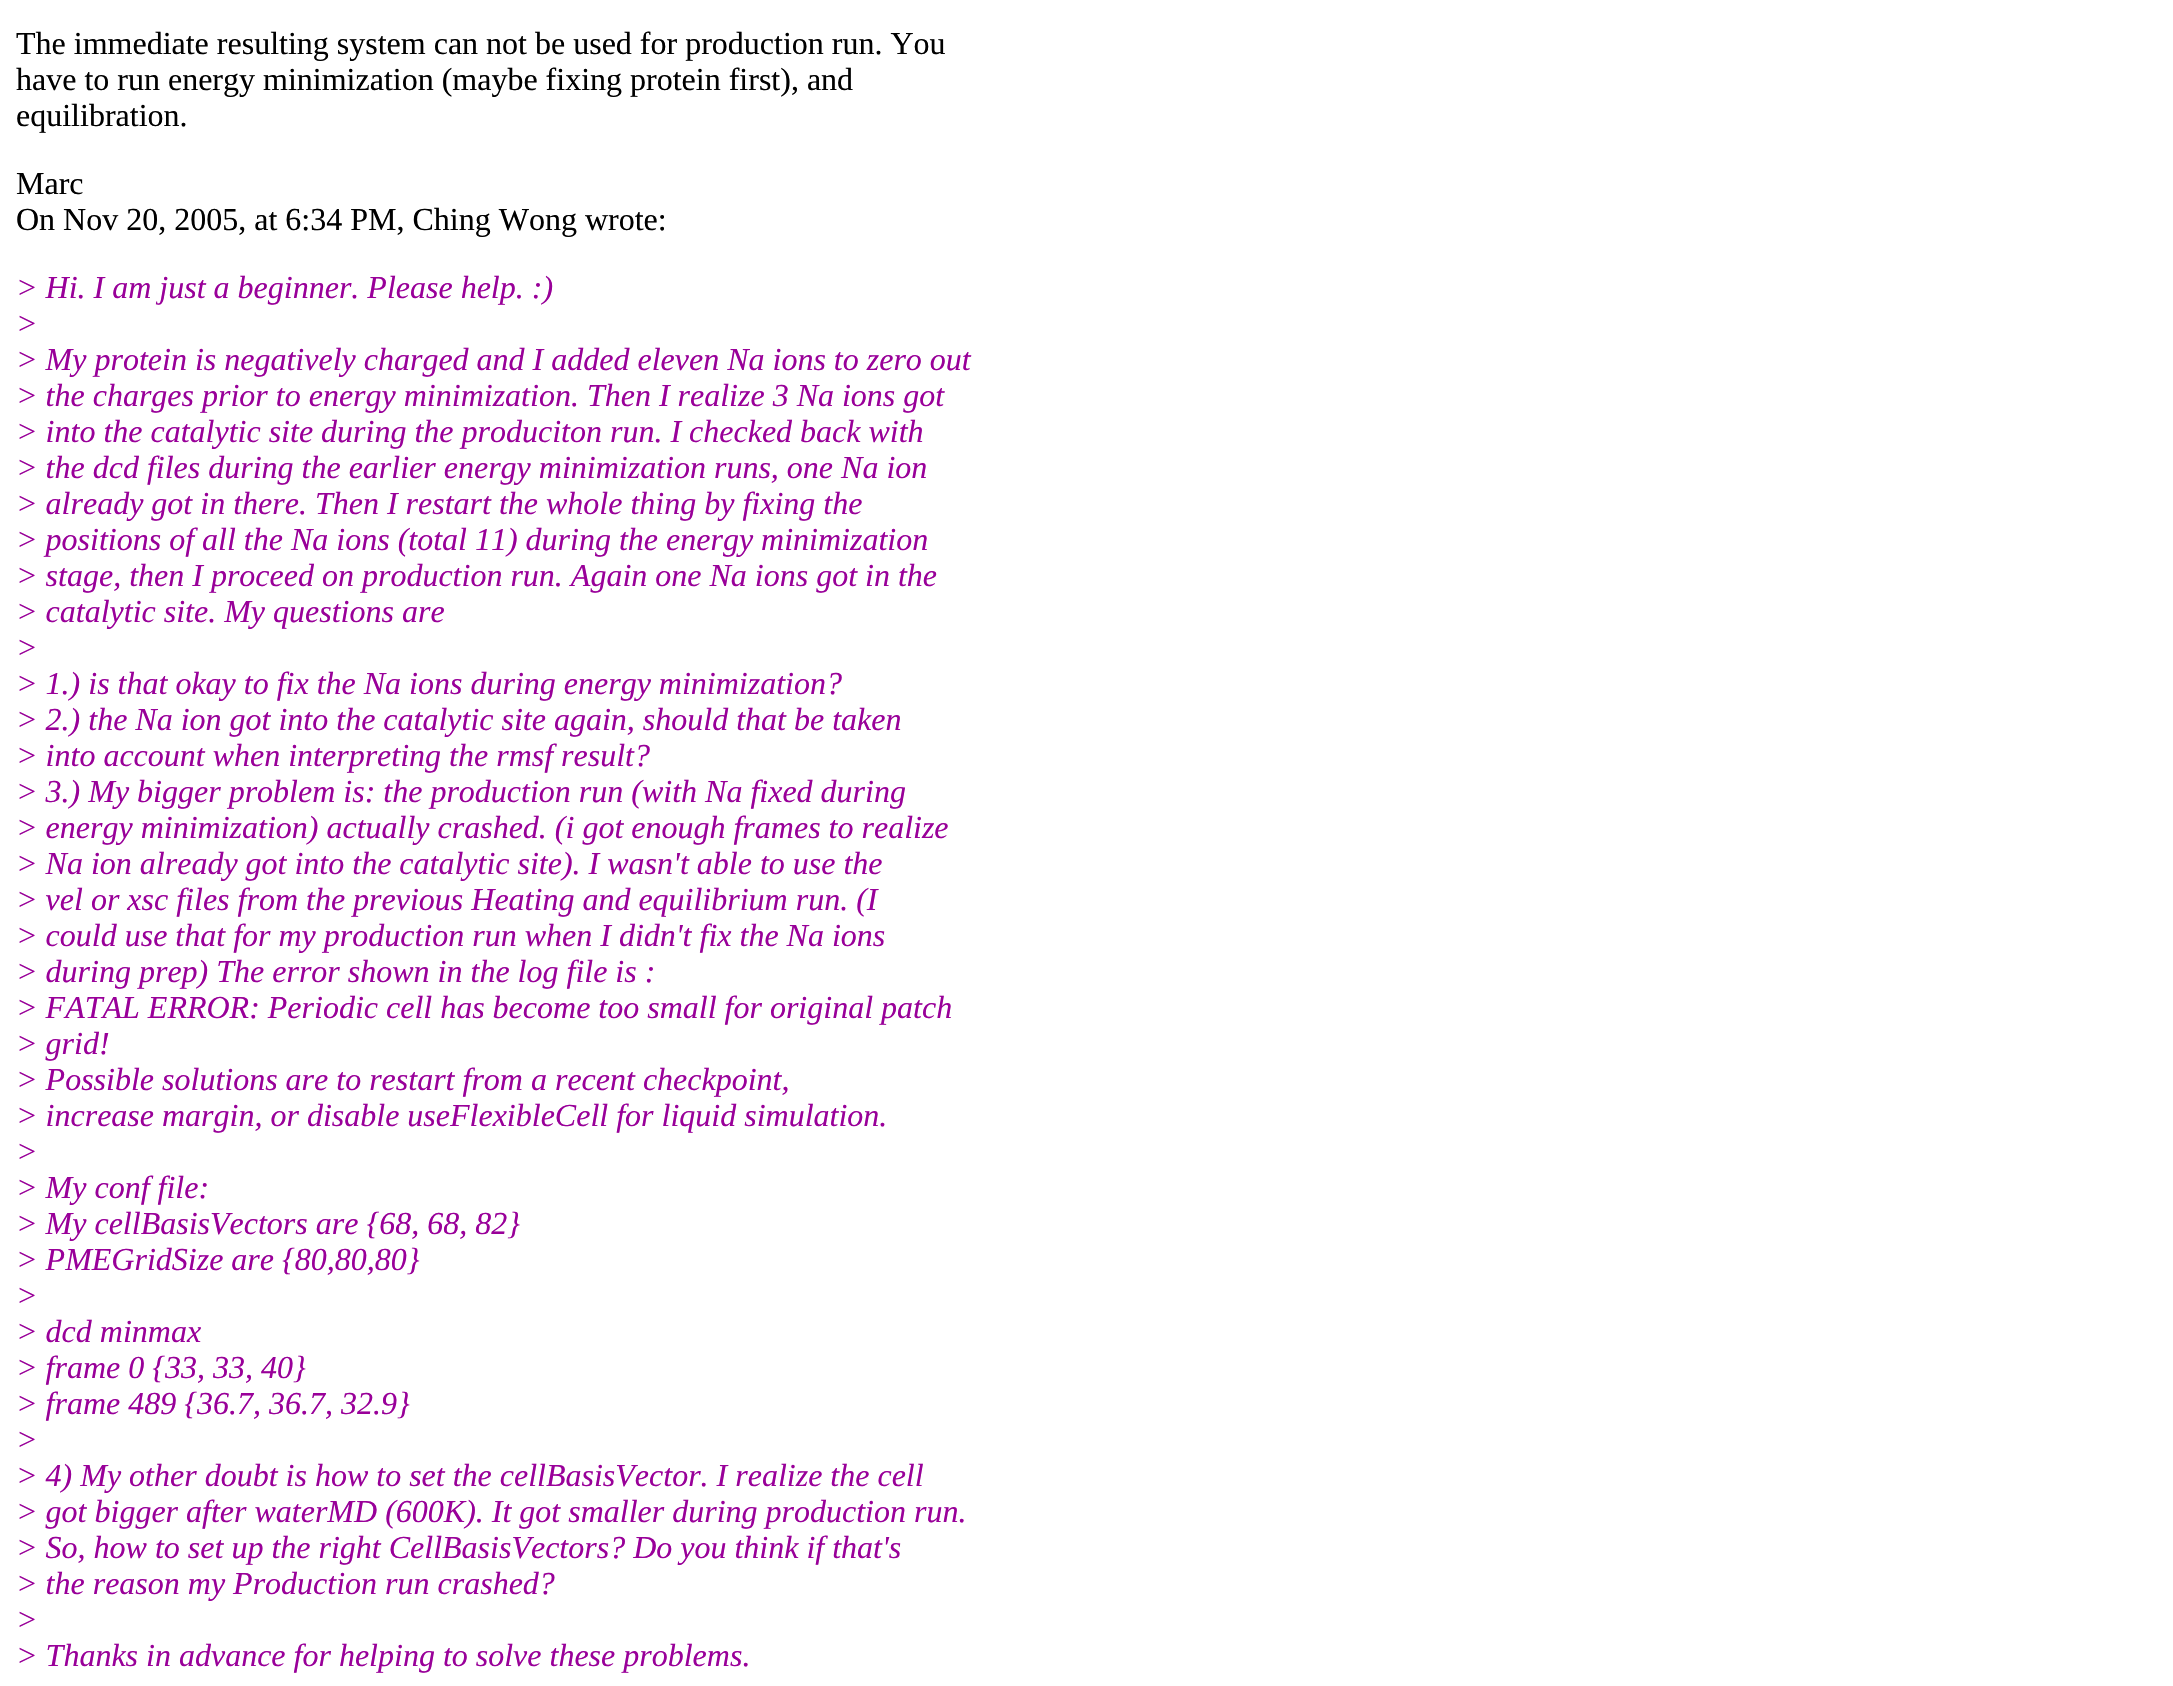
void draw(SkCanvas* canvas) {
  SkPaint paint;
  paint.setAntiAlias(true);
  auto face = [&](const char* family, int weight, float size, bool italic = false) {
    SkFontStyle style(weight, SkFontStyle::kNormal_Width,
      italic ? SkFontStyle::kItalic_Slant : SkFontStyle::kUpright_Slant);
    SkFont result(fontMgr->matchFamilyStyle(family, style), size);
    result.setSubpixel(true);
    return result;
  };
  canvas->clear(0xffffffff);
  auto f0 = face("Liberation Serif", 400, 32);
  paint.setColor(0xff000000);
  {
    const struct { const char* s; float x, y; } items[] = {
      {"The immediate resulting system can not be used for production run. You", 16, 54},
      {"have to run energy minimization (maybe fixing protein first), and", 16, 90},
      {"equilibration.", 16, 126},
      {"Marc", 16, 194},
      {"On Nov 20, 2005, at 6:34 PM, Ching Wong wrote:", 16, 230},
    };
    for (auto [s, x, y] : items) {
      canvas->drawString(s, x, y, f0, paint);
    }
  }
  auto f1 = face("Liberation Serif", 400, 32, true);
  paint.setColor(0xff990099);
  {
    const struct { const char* s; float x, y; } items[] = {
      {"> Hi. I am just a beginner. Please help. :)", 16, 298},
      {">", 16, 334},
      {"> My protein is negatively charged and I added eleven Na ions to zero out", 16, 370},
      {"> the charges prior to energy minimization. Then I realize 3 Na ions got", 16, 406},
      {"> into the catalytic site during the produciton run. I checked back with", 16, 442},
      {"> the dcd files during the earlier energy minimization runs, one Na ion", 16, 478},
      {"> already got in there. Then I restart the whole thing by fixing the", 16, 514},
      {"> positions of all the Na ions (total 11) during the energy minimization", 16, 550},
      {"> stage, then I proceed on production run. Again one Na ions got in the", 16, 586},
      {"> catalytic site. My questions are", 16, 622},
      {">", 16, 658},
      {"> 1.) is that okay to fix the Na ions during energy minimization?", 16, 694},
      {"> 2.) the Na ion got into the catalytic site again, should that be taken", 16, 730},
      {"> into account when interpreting the rmsf result?", 16, 766},
      {"> 3.) My bigger problem is: the production run (with Na fixed during", 16, 802},
      {"> energy minimization) actually crashed. (i got enough frames to realize", 16, 838},
      {"> Na ion already got into the catalytic site). I wasn't able to use the", 16, 874},
      {"> vel or xsc files from the previous Heating and equilibrium run. (I", 16, 910},
      {"> could use that for my production run when I didn't fix the Na ions", 16, 946},
      {"> during prep) The error shown in the log file is :", 16, 982},
      {"> FATAL ERROR: Periodic cell has become too small for original patch", 16, 1018},
      {"> grid!", 16, 1054},
      {"> Possible solutions are to restart from a recent checkpoint,", 16, 1090},
      {"> increase margin, or disable useFlexibleCell for liquid simulation.", 16, 1126},
      {">", 16, 1162},
      {"> My conf file:", 16, 1198},
      {"> My cellBasisVectors are {68, 68, 82}", 16, 1234},
      {"> PMEGridSize are {80,80,80}", 16, 1270},
      {">", 16, 1306},
      {"> dcd minmax", 16, 1342},
      {"> frame 0 {33, 33, 40}", 16, 1378},
      {"> frame 489 {36.7, 36.7, 32.9}", 16, 1414},
      {">", 16, 1450},
      {"> 4) My other doubt is how to set the cellBasisVector. I realize the cell", 16, 1486},
      {"> got bigger after waterMD (600K). It got smaller during production run.", 16, 1522},
      {"> So, how to set up the right CellBasisVectors? Do you think if that's", 16, 1558},
      {"> the reason my Production run crashed?", 16, 1594},
      {">", 16, 1630},
      {"> Thanks in advance for helping to solve these problems.", 16, 1666},
    };
    for (auto [s, x, y] : items) {
      canvas->drawString(s, x, y, f1, paint);
    }
  }
}
